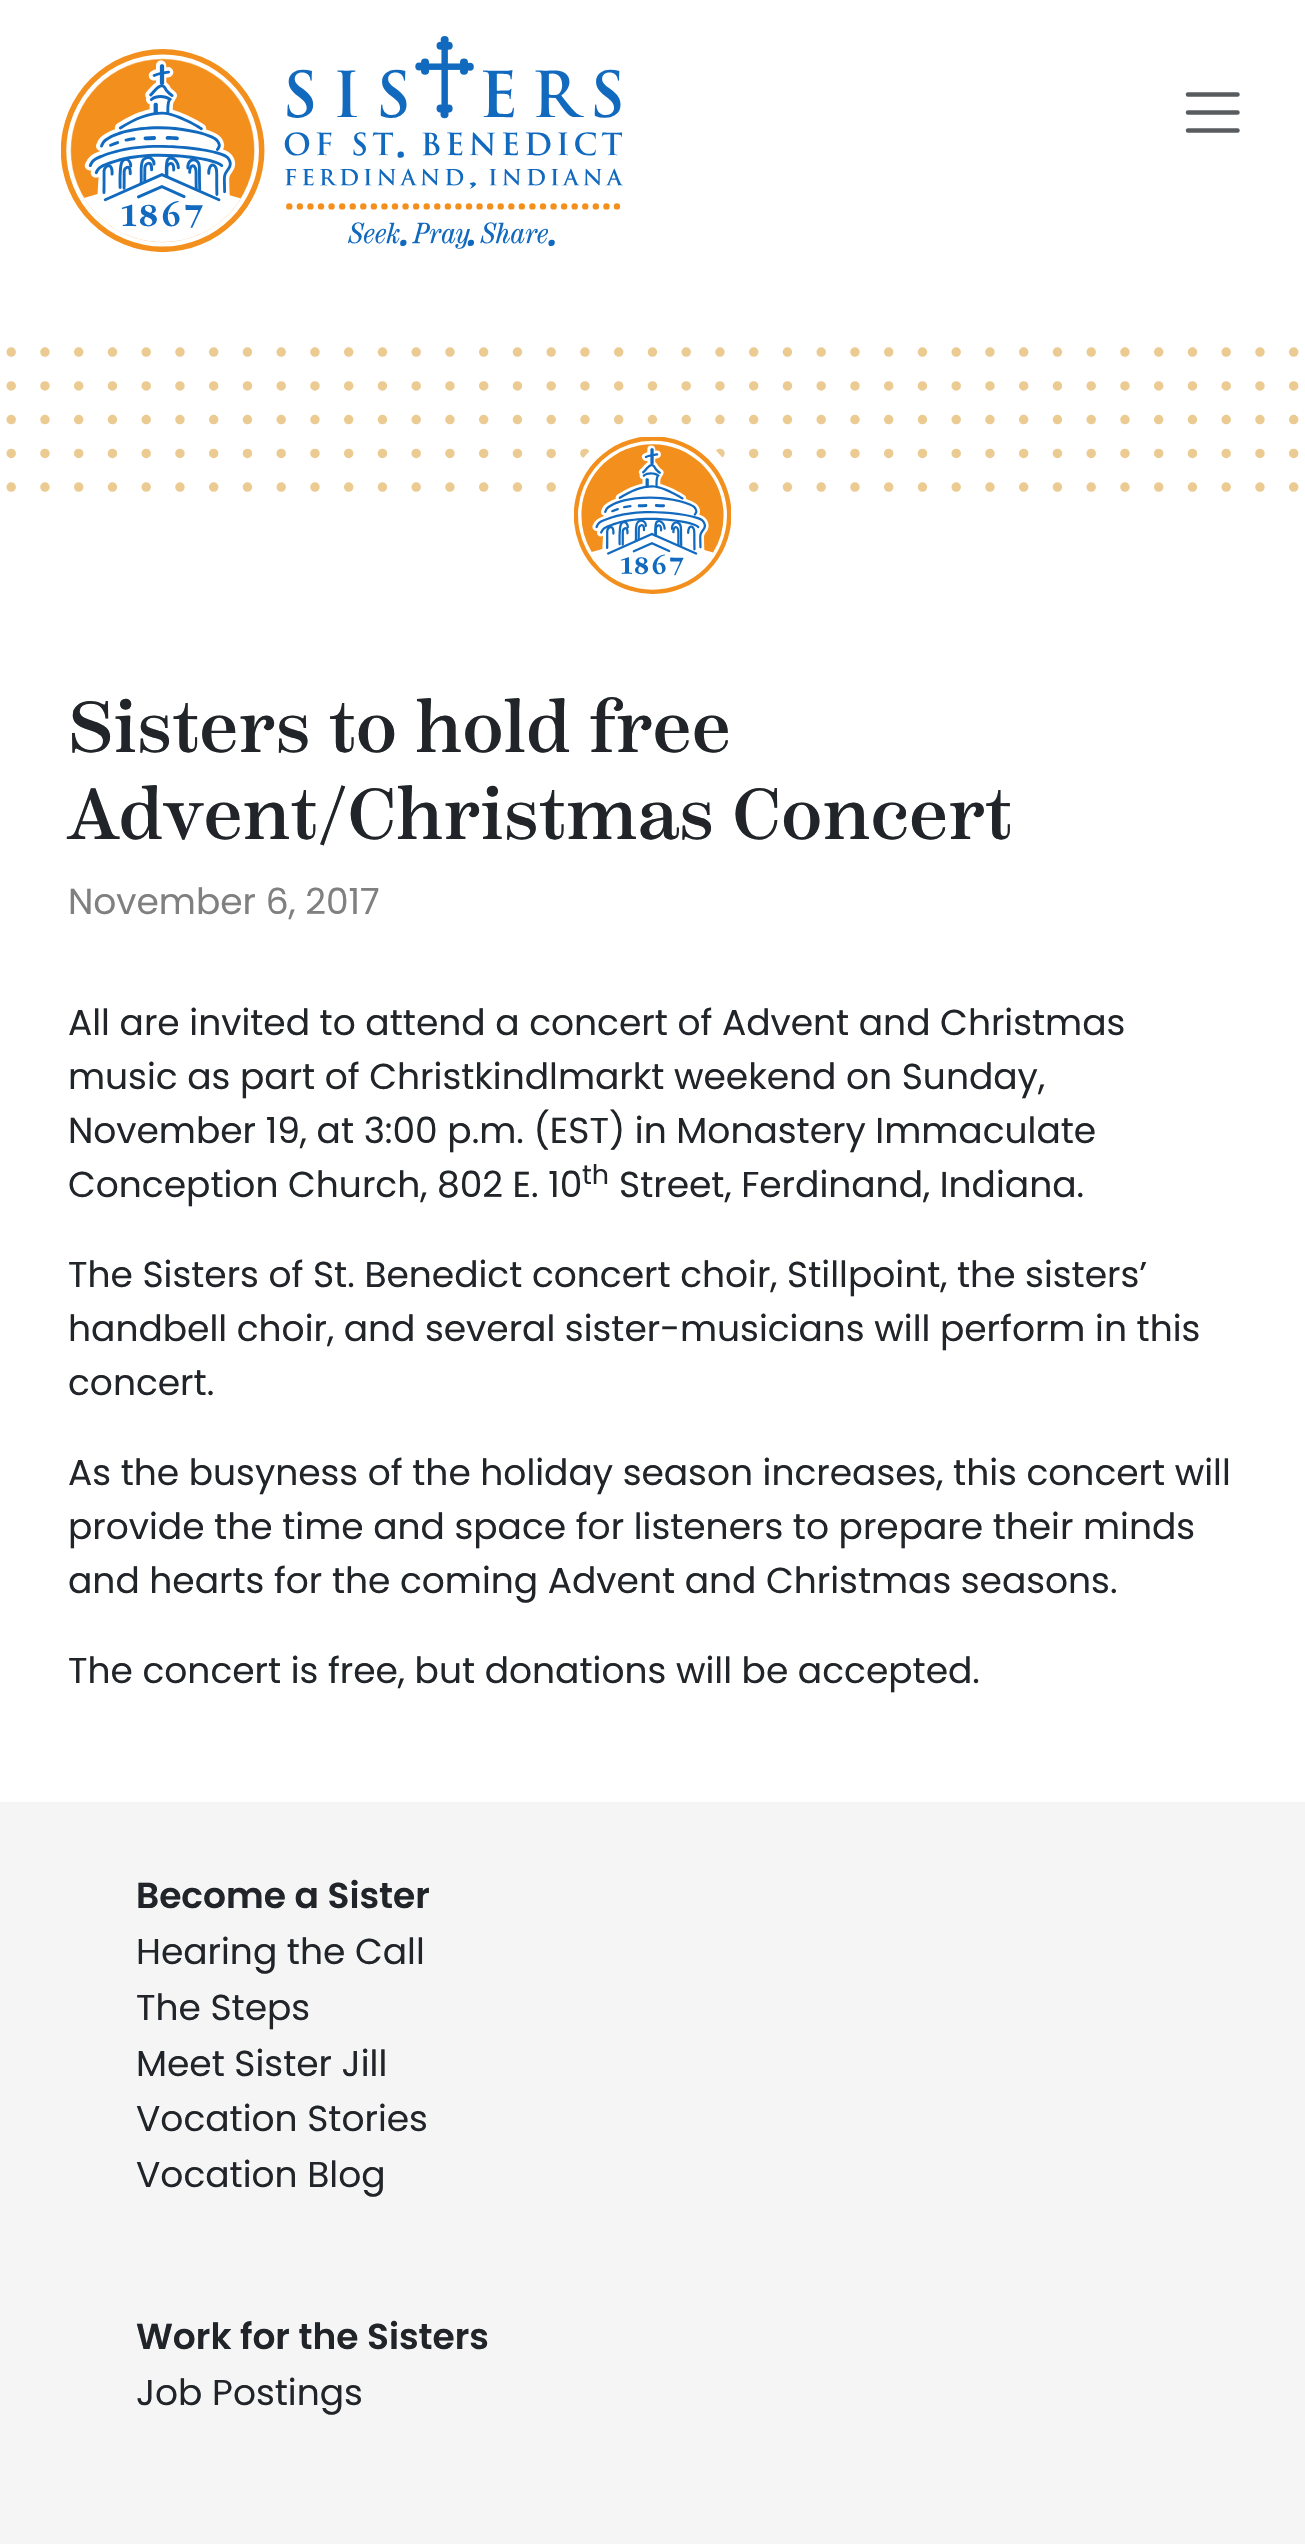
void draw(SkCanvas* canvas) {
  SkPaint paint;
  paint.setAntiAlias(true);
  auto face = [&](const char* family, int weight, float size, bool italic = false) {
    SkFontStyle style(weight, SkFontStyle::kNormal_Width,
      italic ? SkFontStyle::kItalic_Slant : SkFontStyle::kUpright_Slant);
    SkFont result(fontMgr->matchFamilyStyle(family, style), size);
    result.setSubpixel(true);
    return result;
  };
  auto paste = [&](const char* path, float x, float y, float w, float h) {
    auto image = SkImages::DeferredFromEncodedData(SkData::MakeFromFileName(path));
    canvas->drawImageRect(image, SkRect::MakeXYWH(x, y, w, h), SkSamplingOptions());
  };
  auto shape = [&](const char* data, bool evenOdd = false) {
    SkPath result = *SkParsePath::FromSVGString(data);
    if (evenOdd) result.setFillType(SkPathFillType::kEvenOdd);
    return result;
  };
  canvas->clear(0xffffffff);
  paste("img/1.png", 61, 36, 562, 216);
  paint.setStroke(true);
  paint.setStrokeWidth(4.5f);
  paint.setStrokeCap(SkPaint::kRound_Cap);
  paint.setColor(0xff595c5f);
  canvas->drawPath(shape("M1188 94.5H1237.5M1188 112.5H1237.5M1188 130.5H1237.5"), paint);
  paint.setStrokeWidth(9.5f);
  paint.setColor(0xffebcb91);
  paint.setPathEffect(SkDashPathEffect::Make({{0, 33.75f}}, 0));
  canvas->drawPath(shape("M11.2 352.1H1294.2"), paint);
  paint.setPathEffect(nullptr);
  paint.setPathEffect(SkDashPathEffect::Make({{0, 33.75f}}, 0));
  canvas->drawPath(shape("M11.2 385.9H1294.2"), paint);
  paint.setPathEffect(nullptr);
  paint.setPathEffect(SkDashPathEffect::Make({{0, 33.75f}}, 0));
  canvas->drawPath(shape("M11.2 419.6H1294.2"), paint);
  paint.setPathEffect(nullptr);
  paint.setPathEffect(SkDashPathEffect::Make({{0, 33.75f}}, 0));
  canvas->drawPath(shape("M11.2 453.4H1294.2"), paint);
  paint.setPathEffect(nullptr);
  paint.setPathEffect(SkDashPathEffect::Make({{0, 33.75f}}, 0));
  canvas->drawPath(shape("M11.2 487.1H1294.2"), paint);
  paint.setPathEffect(nullptr);
  paint.setStroke(false);
  paint.setColor(0xffffffff);
  canvas->drawCircle(653, 515, 90, paint);
  paste("img/2.png", 574, 437, 157, 157);
  paint.setColor(0xfff5f5f5);
  canvas->drawRect(SkRect::MakeXYWH(0, 1802, 1305, 742), paint);
  auto f0 = face("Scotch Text", 500, 72);
  paint.setColor(0xff212529);
  canvas->drawString("Sisters to hold free", 68, 752, f0, paint);
  canvas->drawString("Advent/Christmas Concert", 68, 839, f0, paint);
  auto f1 = face("Poppins", 400, 36);
  paint.setColor(0xff808080);
  canvas->drawString("November 6, 2017", 68, 914, f1, paint);
  paint.setColor(0xff212529);
  {
    const struct { const char* s; float x, y; } items[] = {
      {"All are invited to attend a concert of Advent and Christmas", 68, 1035},
      {"music as part of Christkindlmarkt weekend on Sunday,", 68, 1089},
      {"November 19, at 3:00 p.m. (EST) in Monastery Immaculate", 68, 1143},
      {"Conception Church, 802 E. 10", 68, 1197},
    };
    for (auto [s, x, y] : items) {
      canvas->drawString(s, x, y, f1, paint);
    }
  }
  auto f2 = face("Poppins", 400, 27);
  canvas->drawString("th", 582, 1184, f2, paint);
  {
    const struct { const char* s; float x, y; } items[] = {
      {"Street, Ferdinand, Indiana.", 619, 1197},
      {"The Sisters of St. Benedict concert choir, Stillpoint, the sisters’", 68, 1287},
      {"handbell choir, and several sister-musicians will perform in this", 68, 1341},
      {"concert.", 68, 1395},
      {"As the busyness of the holiday season increases, this concert will", 68, 1485},
      {"provide the time and space for listeners to prepare their minds", 68, 1539},
      {"and hearts for the coming Advent and Christmas seasons.", 68, 1593},
      {"The concert is free, but donations will be accepted.", 68, 1683},
    };
    for (auto [s, x, y] : items) {
      canvas->drawString(s, x, y, f1, paint);
    }
  }
  auto f3 = face("Poppins", 600, 36);
  canvas->drawString("Become a Sister", 136, 1908, f3, paint);
  {
    const struct { const char* s; float x, y; } items[] = {
      {"Hearing the Call", 136, 1964},
      {"The Steps", 136, 2020},
      {"Meet Sister Jill", 136, 2076},
      {"Vocation Stories", 136, 2131},
      {"Vocation Blog", 136, 2187},
    };
    for (auto [s, x, y] : items) {
      canvas->drawString(s, x, y, f1, paint);
    }
  }
  canvas->drawString("Work for the Sisters", 136, 2349, f3, paint);
  canvas->drawString("Job Postings", 136, 2405, f1, paint);
}
